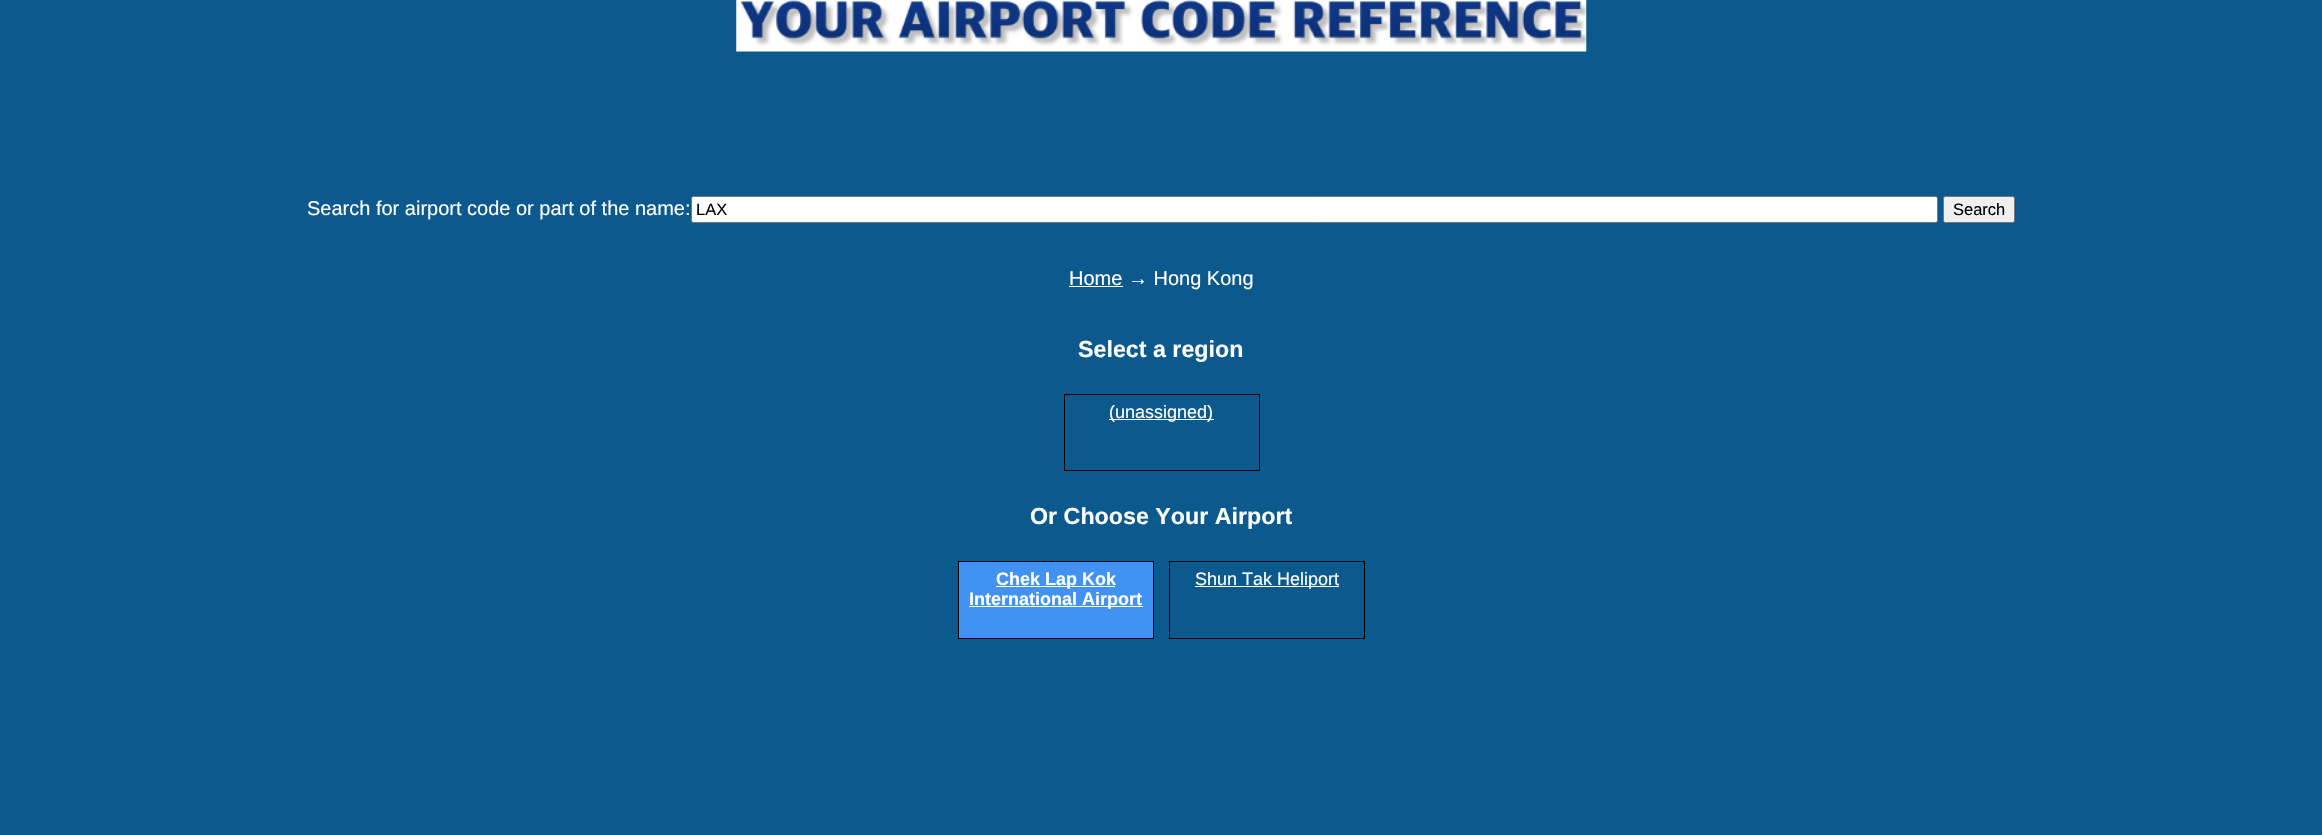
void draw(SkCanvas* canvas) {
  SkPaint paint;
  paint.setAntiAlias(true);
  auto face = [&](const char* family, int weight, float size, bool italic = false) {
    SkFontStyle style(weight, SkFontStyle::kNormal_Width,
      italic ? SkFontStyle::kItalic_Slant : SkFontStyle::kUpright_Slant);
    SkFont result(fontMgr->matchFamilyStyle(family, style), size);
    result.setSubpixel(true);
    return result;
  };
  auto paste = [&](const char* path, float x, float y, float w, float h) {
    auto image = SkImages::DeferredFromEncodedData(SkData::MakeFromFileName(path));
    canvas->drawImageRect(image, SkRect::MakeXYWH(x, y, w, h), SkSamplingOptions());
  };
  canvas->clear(0xff0b598d);
  paste("img/1.png", 736, 0, 851, 52);
  paint.setColor(0xffffffff);
  canvas->drawRoundRect(SkRect::MakeXYWH(691.5f, 196.5f, 1246, 26), 2, 2, paint);
  paint.setStroke(true);
  paint.setStrokeWidth(1);
  paint.setColor(0xff767676);
  canvas->drawRoundRect(SkRect::MakeXYWH(691.5f, 196.5f, 1246, 26), 2, 2, paint);
  paint.setStroke(false);
  paint.setColor(0xffefefef);
  canvas->drawRoundRect(SkRect::MakeXYWH(1943.5f, 196.5f, 71, 26), 2, 2, paint);
  paint.setStroke(true);
  paint.setColor(0xff767676);
  canvas->drawRoundRect(SkRect::MakeXYWH(1943.5f, 196.5f, 71, 26), 2, 2, paint);
  paint.setStroke(false);
  paint.setColor(0xffffffff);
  canvas->drawRect(SkRect::MakeXYWH(1069, 286, 54, 1), paint);
  paint.setStroke(true);
  paint.setColor(0xff000000);
  canvas->drawRect(SkRect::MakeXYWH(1064.5f, 394.5f, 195, 76), paint);
  paint.setStroke(false);
  paint.setColor(0xffffffff);
  canvas->drawRect(SkRect::MakeXYWH(1109, 419, 105, 1), paint);
  paint.setColor(0xff4292f4);
  canvas->drawRect(SkRect::MakeXYWH(958.5f, 561.5f, 195, 77), paint);
  paint.setStroke(true);
  paint.setColor(0xff000000);
  canvas->drawRect(SkRect::MakeXYWH(958.5f, 561.5f, 195, 77), paint);
  paint.setStroke(false);
  paint.setColor(0xffffffff);
  canvas->drawRect(SkRect::MakeXYWH(996, 586, 119, 1), paint);
  canvas->drawRect(SkRect::MakeXYWH(969, 606, 174, 1), paint);
  paint.setStroke(true);
  paint.setColor(0xff000000);
  canvas->drawRect(SkRect::MakeXYWH(1169.5f, 561.5f, 195, 77), paint);
  paint.setStroke(false);
  paint.setColor(0xffffffff);
  canvas->drawRect(SkRect::MakeXYWH(1195, 586, 144, 1), paint);
  auto f0 = face("Liberation Sans", 400, 20);
  canvas->drawString("Search for airport code or part of the name:", 307, 215, f0, paint);
  auto f1 = face("Liberation Sans", 400, 16.5f);
  paint.setColor(0xff000000);
  canvas->drawString("LAX", 696, 215, f1, paint);
  canvas->drawString("Search", 1953, 215, f1, paint);
  paint.setColor(0xffffffff);
  canvas->drawString("Home → Hong Kong", 1069, 285, f0, paint);
  auto f2 = face("Liberation Sans", 700, 23.25f);
  canvas->drawString("Select a region", 1078, 357, f2, paint);
  auto f3 = face("Liberation Sans", 400, 18);
  canvas->drawString("(unassigned)", 1109, 418, f3, paint);
  canvas->drawString("Or Choose Your Airport", 1030, 524, f2, paint);
  auto f4 = face("Liberation Sans", 700, 18);
  canvas->drawString("Chek Lap Kok", 996, 585, f4, paint);
  canvas->drawString("International Airport", 969, 605, f4, paint);
  canvas->drawString("Shun Tak Heliport", 1195, 585, f3, paint);
}
